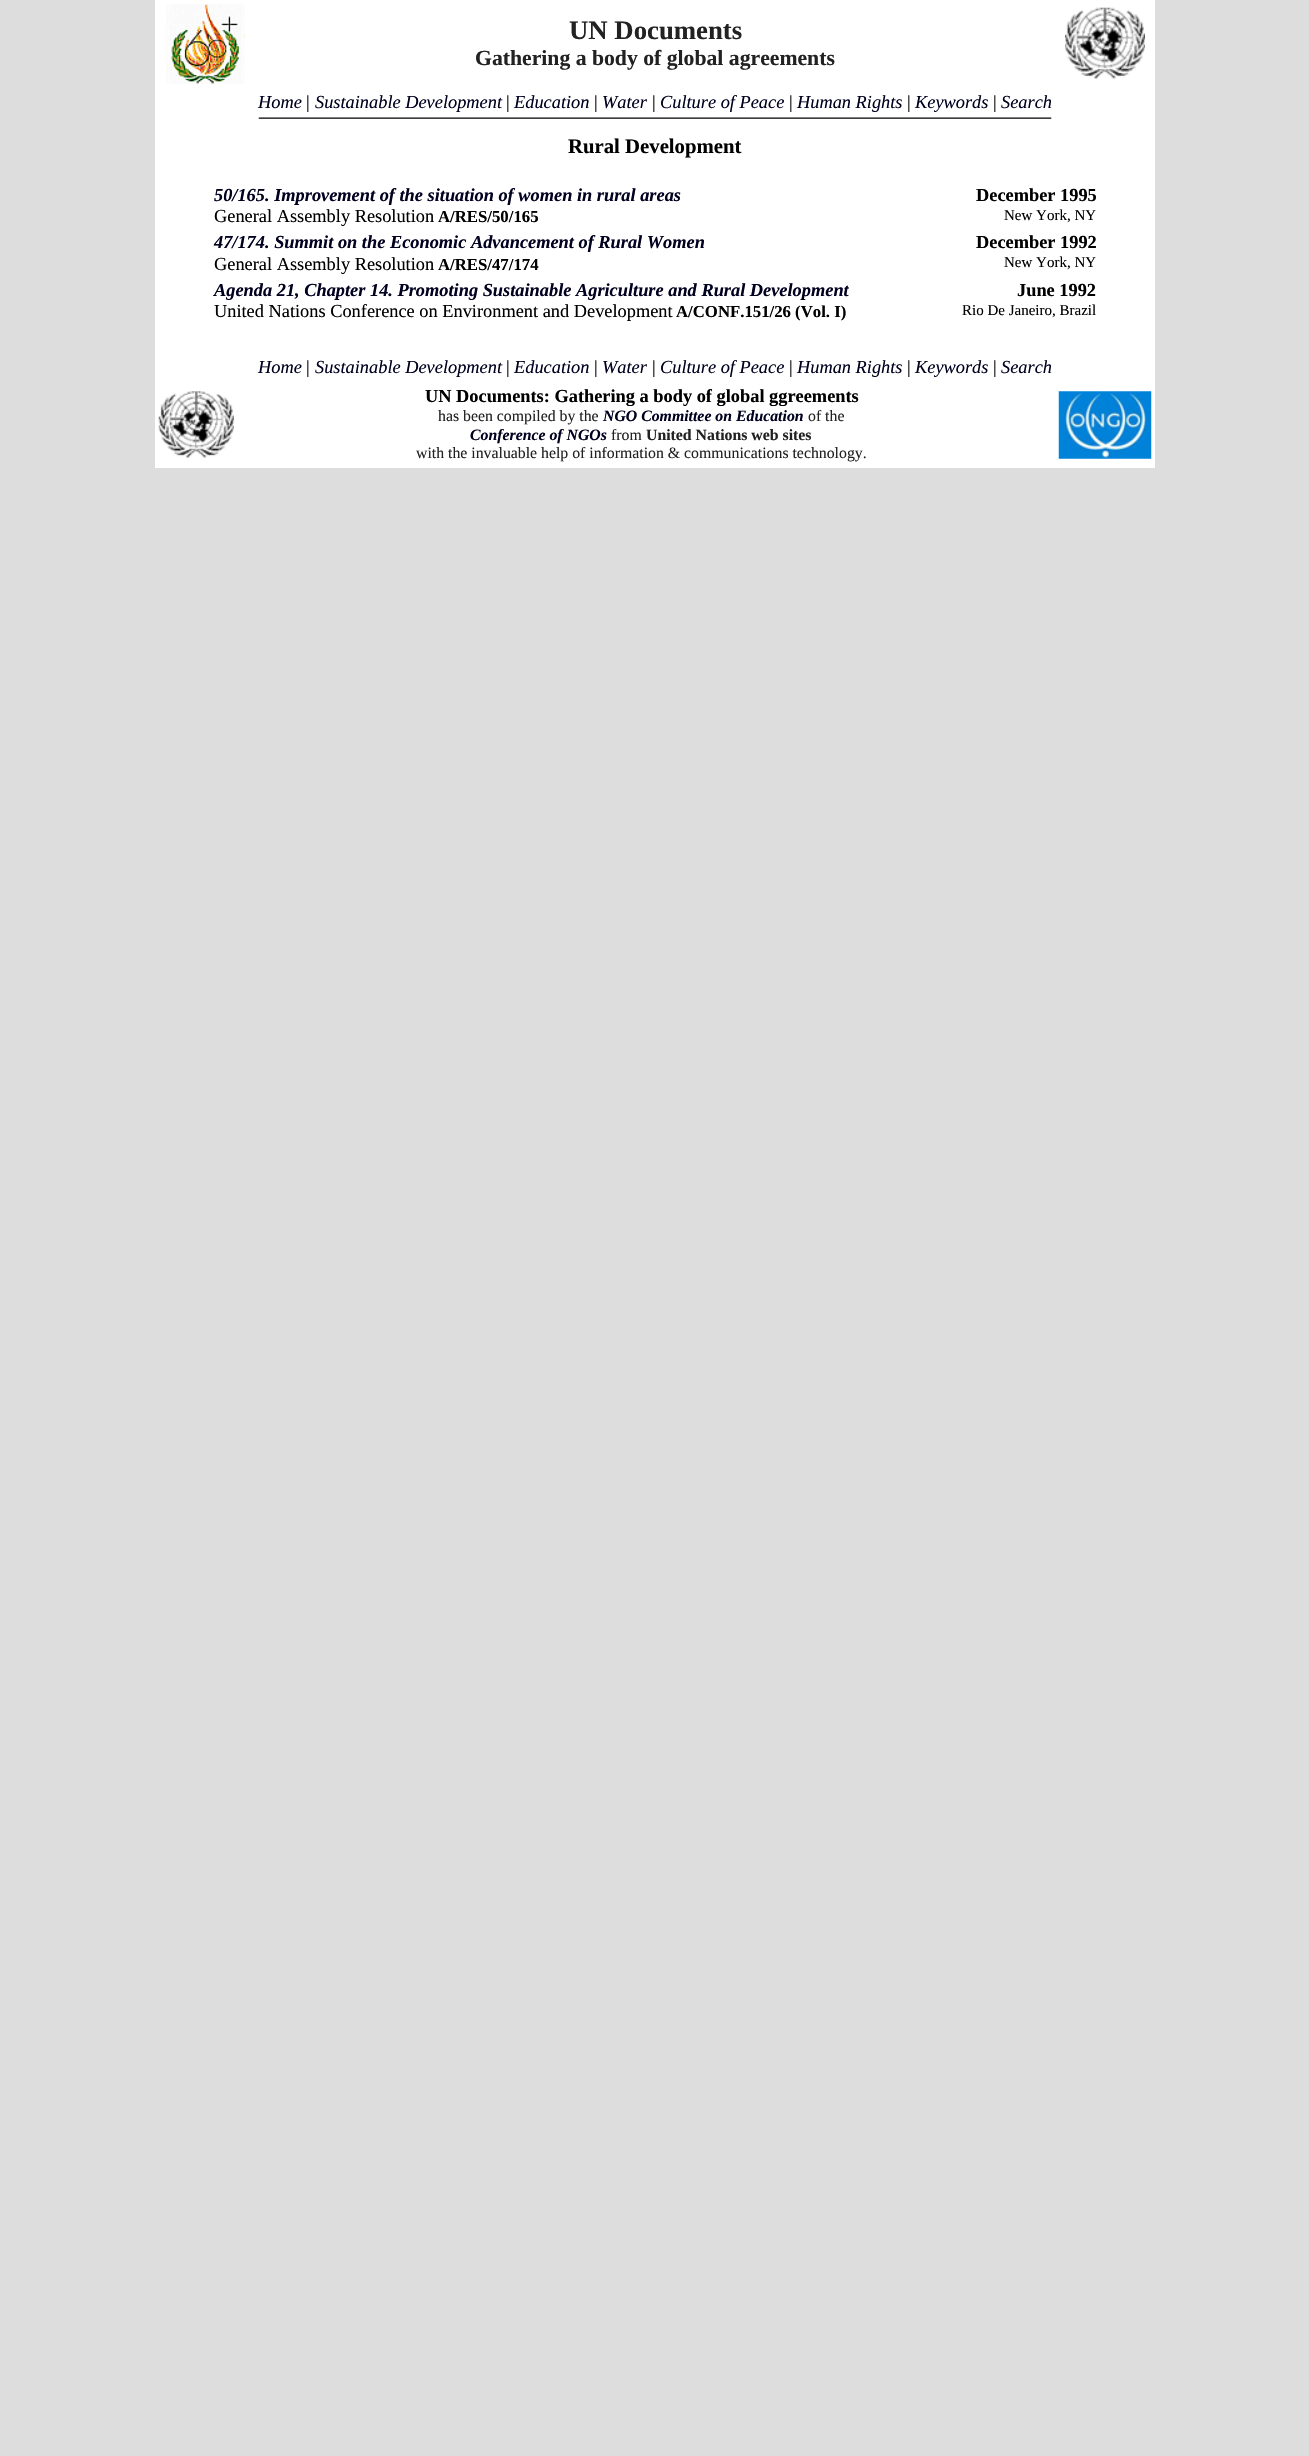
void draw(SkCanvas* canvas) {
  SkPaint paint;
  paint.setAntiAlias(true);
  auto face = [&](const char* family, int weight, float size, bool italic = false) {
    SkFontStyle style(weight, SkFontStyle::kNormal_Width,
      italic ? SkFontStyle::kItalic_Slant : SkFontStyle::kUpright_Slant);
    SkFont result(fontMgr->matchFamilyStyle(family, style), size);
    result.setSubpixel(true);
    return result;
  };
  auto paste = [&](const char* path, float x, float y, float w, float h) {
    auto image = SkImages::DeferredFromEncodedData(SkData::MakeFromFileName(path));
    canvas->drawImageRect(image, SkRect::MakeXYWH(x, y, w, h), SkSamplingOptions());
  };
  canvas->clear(0xffdddddd);
  paint.setColor(0xffffffff);
  canvas->drawRect(SkRect::MakeXYWH(155, 0, 1000, 468), paint);
  paste("img/1.png", 166, 3, 79, 81);
  paste("img/2.png", 1065, 7, 80, 72);
  paste("img/3.png", 258, 117, 794, 2);
  paste("img/4.png", 158, 391, 76, 67);
  paste("img/5.png", 1058, 391, 94, 68);
  auto f0 = face("Liberation Serif", 700, 26.75f);
  paint.setColor(0xff222222);
  canvas->drawString("UN Documents", 569, 39, f0, paint);
  auto f1 = face("Liberation Serif", 700, 21.7f);
  canvas->drawString("Gathering a body of global agreements", 475, 65, f1, paint);
  auto f2 = face("Liberation Serif", 400, 18.35f, true);
  paint.setColor(0xff00001f);
  canvas->drawString("Home", 258, 108, f2, paint);
  auto f3 = face("Liberation Serif", 400, 18.35f);
  paint.setColor(0xff000000);
  canvas->drawString("|", 306, 108, f3, paint);
  paint.setColor(0xff00001f);
  canvas->drawString("Sustainable Development", 315, 108, f2, paint);
  paint.setColor(0xff000000);
  canvas->drawString("|", 506, 108, f3, paint);
  paint.setColor(0xff00001f);
  canvas->drawString("Education", 514, 108, f2, paint);
  paint.setColor(0xff000000);
  canvas->drawString("|", 594, 108, f3, paint);
  paint.setColor(0xff00001f);
  canvas->drawString("Water", 602, 108, f2, paint);
  paint.setColor(0xff000000);
  canvas->drawString("|", 652, 108, f3, paint);
  paint.setColor(0xff00001f);
  canvas->drawString("Culture of Peace", 660, 108, f2, paint);
  paint.setColor(0xff000000);
  canvas->drawString("|", 789, 108, f3, paint);
  paint.setColor(0xff00001f);
  canvas->drawString("Human Rights", 797, 108, f2, paint);
  paint.setColor(0xff000000);
  canvas->drawString("|", 907, 108, f3, paint);
  paint.setColor(0xff00001f);
  canvas->drawString("Keywords", 915, 108, f2, paint);
  paint.setColor(0xff000000);
  canvas->drawString("|", 993, 108, f3, paint);
  paint.setColor(0xff00001f);
  canvas->drawString("Search", 1001, 108, f2, paint);
  auto f4 = face("Liberation Serif", 700, 20.75f);
  paint.setColor(0xff000000);
  canvas->drawString("Rural Development", 568, 153, f4, paint);
  auto f5 = face("Liberation Serif", 700, 18.35f, true);
  paint.setColor(0xff00001f);
  canvas->drawString("50/165. Improvement of the situation of women in rural areas", 214, 201, f5, paint);
  paint.setColor(0xff000000);
  canvas->drawString("General Assembly Resolution", 214, 222, f3, paint);
  auto f6 = face("Liberation Serif", 700, 16.75f);
  canvas->drawString("A/RES/50/165", 438, 222, f6, paint);
  auto f7 = face("Liberation Serif", 700, 18.35f);
  canvas->drawString("December 1995", 976, 201, f7, paint);
  auto f8 = face("Liberation Serif", 400, 15);
  canvas->drawString("New York, NY", 1004, 220, f8, paint);
  paint.setColor(0xff00001f);
  canvas->drawString("47/174. Summit on the Economic Advancement of Rural Women", 214, 248, f5, paint);
  paint.setColor(0xff000000);
  canvas->drawString("General Assembly Resolution", 214, 270, f3, paint);
  canvas->drawString("A/RES/47/174", 438, 270, f6, paint);
  canvas->drawString("December 1992", 976, 248, f7, paint);
  canvas->drawString("New York, NY", 1004, 267, f8, paint);
  paint.setColor(0xff00001f);
  canvas->drawString("Agenda 21, Chapter 14. Promoting Sustainable Agriculture and Rural Development", 214, 296, f5, paint);
  paint.setColor(0xff000000);
  canvas->drawString("United Nations Conference on Environment and Development", 214, 317, f3, paint);
  canvas->drawString("A/CONF.151/26 (Vol. I)", 676, 317, f6, paint);
  canvas->drawString("June 1992", 1017, 296, f7, paint);
  canvas->drawString("Rio De Janeiro, Brazil", 962, 315, f8, paint);
  paint.setColor(0xff00001f);
  canvas->drawString("Home", 258, 373, f2, paint);
  paint.setColor(0xff000000);
  canvas->drawString("|", 306, 373, f3, paint);
  paint.setColor(0xff00001f);
  canvas->drawString("Sustainable Development", 315, 373, f2, paint);
  paint.setColor(0xff000000);
  canvas->drawString("|", 506, 373, f3, paint);
  paint.setColor(0xff00001f);
  canvas->drawString("Education", 514, 373, f2, paint);
  paint.setColor(0xff000000);
  canvas->drawString("|", 594, 373, f3, paint);
  paint.setColor(0xff00001f);
  canvas->drawString("Water", 602, 373, f2, paint);
  paint.setColor(0xff000000);
  canvas->drawString("|", 652, 373, f3, paint);
  paint.setColor(0xff00001f);
  canvas->drawString("Culture of Peace", 660, 373, f2, paint);
  paint.setColor(0xff000000);
  canvas->drawString("|", 789, 373, f3, paint);
  paint.setColor(0xff00001f);
  canvas->drawString("Human Rights", 797, 373, f2, paint);
  paint.setColor(0xff000000);
  canvas->drawString("|", 907, 373, f3, paint);
  paint.setColor(0xff00001f);
  canvas->drawString("Keywords", 915, 373, f2, paint);
  paint.setColor(0xff000000);
  canvas->drawString("|", 993, 373, f3, paint);
  paint.setColor(0xff00001f);
  canvas->drawString("Search", 1001, 373, f2, paint);
  paint.setColor(0xff000000);
  canvas->drawString("UN Documents: Gathering a body of global ggreements", 425, 402, f7, paint);
  auto f9 = face("Liberation Serif", 400, 15.8f);
  paint.setColor(0xff222222);
  canvas->drawString("has been compiled by the", 438, 421, f9, paint);
  auto f10 = face("Liberation Serif", 700, 15.8f, true);
  paint.setColor(0xff00001f);
  canvas->drawString("NGO Committee on Education", 603, 421, f10, paint);
  paint.setColor(0xff222222);
  canvas->drawString("of the", 808, 421, f9, paint);
  paint.setColor(0xff00001f);
  canvas->drawString("Conference of NGOs", 470, 440, f10, paint);
  paint.setColor(0xff222222);
  canvas->drawString("from", 611, 440, f9, paint);
  auto f11 = face("Liberation Serif", 700, 15.8f);
  canvas->drawString("United Nations web sites", 646, 440, f11, paint);
  canvas->drawString("with the invaluable help of information & communications technology.", 416, 458, f9, paint);
}
